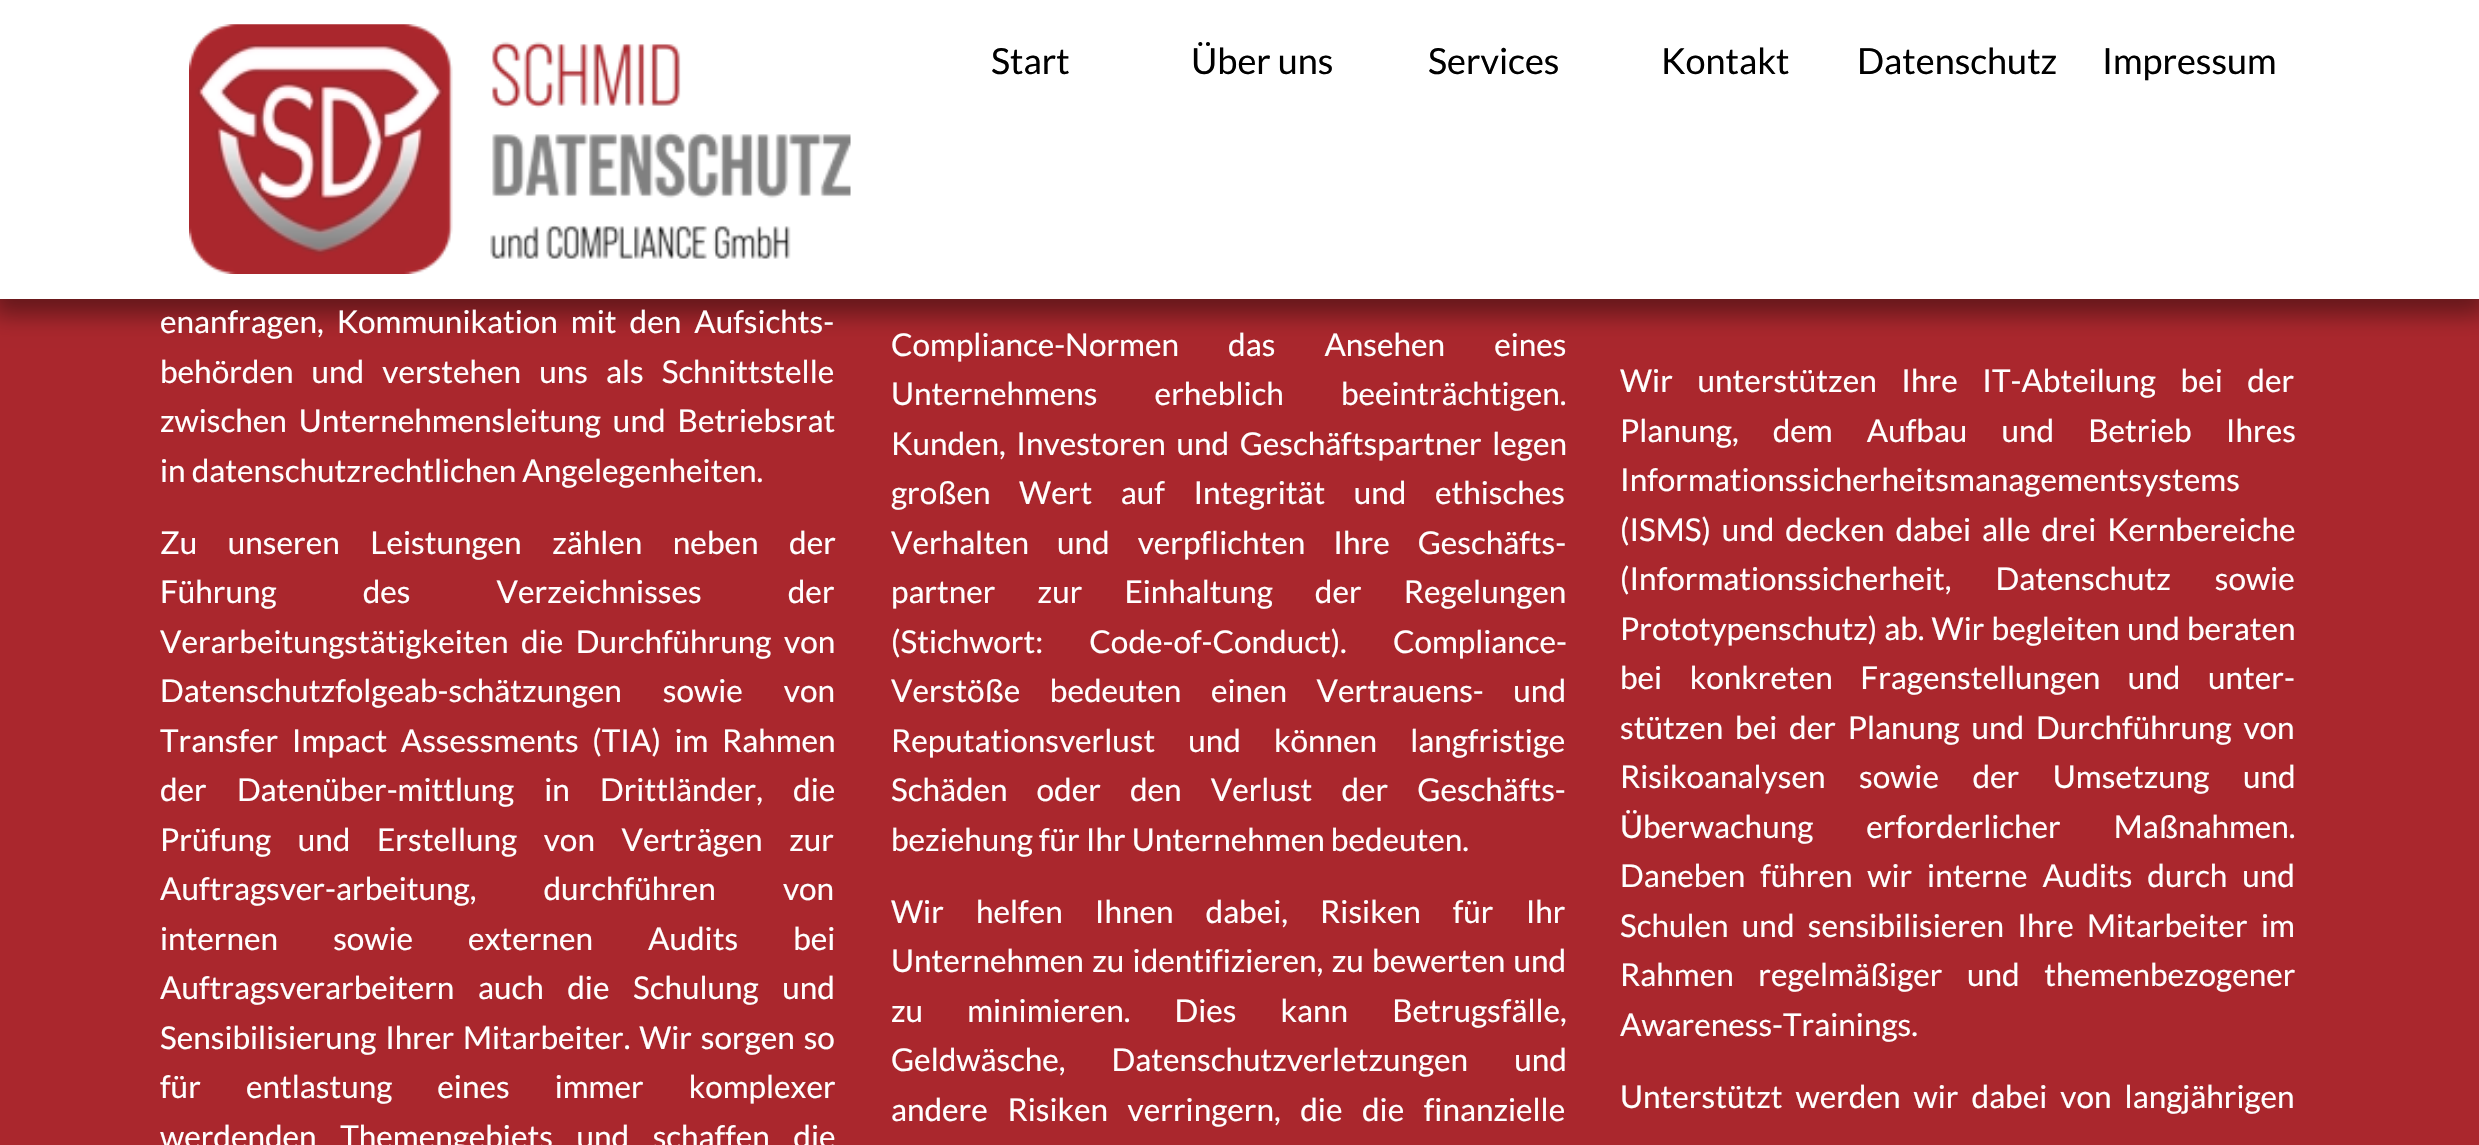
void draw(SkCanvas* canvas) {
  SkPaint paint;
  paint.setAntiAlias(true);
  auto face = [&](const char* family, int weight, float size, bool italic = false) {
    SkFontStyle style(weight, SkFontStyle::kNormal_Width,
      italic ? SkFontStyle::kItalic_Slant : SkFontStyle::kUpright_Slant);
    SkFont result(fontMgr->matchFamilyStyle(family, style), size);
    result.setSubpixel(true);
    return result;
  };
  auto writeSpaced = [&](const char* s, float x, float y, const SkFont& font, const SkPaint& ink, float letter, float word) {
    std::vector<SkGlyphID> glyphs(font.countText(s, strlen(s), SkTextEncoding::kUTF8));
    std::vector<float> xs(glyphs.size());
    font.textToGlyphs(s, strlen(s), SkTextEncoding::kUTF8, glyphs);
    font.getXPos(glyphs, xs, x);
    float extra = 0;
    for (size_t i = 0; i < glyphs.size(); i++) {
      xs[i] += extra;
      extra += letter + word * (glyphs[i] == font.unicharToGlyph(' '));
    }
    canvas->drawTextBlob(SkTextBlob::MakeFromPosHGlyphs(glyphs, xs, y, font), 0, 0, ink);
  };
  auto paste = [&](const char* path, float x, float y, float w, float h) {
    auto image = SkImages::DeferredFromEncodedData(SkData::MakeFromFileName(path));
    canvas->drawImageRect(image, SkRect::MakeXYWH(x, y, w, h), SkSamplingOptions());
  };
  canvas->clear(0xffaa272d);
  paint.setColor(0x66000000);
  paint.setMaskFilter(SkMaskFilter::MakeBlur(kNormal_SkBlurStyle, 11));
  canvas->drawRect(SkRect::MakeXYWH(-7, 2, 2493, 313), paint);
  paint.setMaskFilter(nullptr);
  paint.setColor(0xffffffff);
  canvas->drawRect(SkRect::MakeXYWH(0, 0, 2479, 299), paint);
  paste("img/1.png", 189, 24, 662, 250);
  auto f0 = face("Lato", 400, 36);
  paint.setColor(0xff000000);
  {
    const struct { const char* s; float x, y; } items[] = {
      {"Start", 991, 74},
      {"Über uns", 1191, 74},
      {"Services", 1428, 74},
      {"Kontakt", 1661, 74},
      {"Datenschutz", 1857, 74},
      {"Impressum", 2102, 74},
    };
    for (auto [s, x, y] : items) {
      canvas->drawString(s, x, y, f0, paint);
    }
  }
  auto f1 = face("Lato", 400, 31.5f);
  paint.setColor(0xffffffff);
  writeSpaced("enanfragen, Kommunikation mit den Aufsichts-", 160, 333, f1, paint, 0, 7);
  writeSpaced("behörden und verstehen uns als Schnittstelle", 160, 383, f1, paint, 0, 12);
  writeSpaced("zwischen Unternehmensleitung und Betriebsrat", 160, 432, f1, paint, 0, 6);
  canvas->drawString("in datenschutzrechtlichen Angelegenheiten.", 160, 482, f1, paint);
  writeSpaced("Zu unseren Leistungen zählen neben der", 160, 554, f1, paint, 0, 24.5f);
  writeSpaced("Führung des Verzeichnisses der", 160, 603, f1, paint, 0, 80);
  writeSpaced("Verarbeitungstätigkeiten die Durchführung von", 160, 653, f1, paint, 0, 6.5f);
  writeSpaced("Datenschutzfolgeab-schätzungen sowie von", 160, 702, f1, paint, 0, 35);
  writeSpaced("Transfer Impact Assessments (TIA) im Rahmen", 160, 752, f1, paint, 0, 7.5f);
  writeSpaced("der Datenüber-mittlung in Drittländer, die", 160, 801, f1, paint, 0, 24);
  writeSpaced("Prüfung und Erstellung von Verträgen zur", 160, 851, f1, paint, 0, 20.5f);
  writeSpaced("Auftragsver-arbeitung, durchführen von", 160, 900, f1, paint, 0, 61);
  writeSpaced("internen sowie externen Audits bei", 160, 950, f1, paint, 0, 49);
  writeSpaced("Auftragsverarbeitern auch die Schulung und", 160, 999, f1, paint, 0, 17.5f);
  writeSpaced("Sensibilisierung Ihrer Mitarbeiter. Wir sorgen so", 160, 1049, f1, paint, 0, 2.75f);
  writeSpaced("für entlastung eines immer komplexer", 160, 1098, f1, paint, 0, 39);
  writeSpaced("werdenden Themengebiets und schaffen die", 160, 1148, f1, paint, 0, 17.5f);
  writeSpaced("Compliance-Normen das Ansehen eines", 891, 356, f1, paint, 0, 43);
  writeSpaced("Unternehmens erheblich beeinträchtigen.", 891, 405, f1, paint, 0, 51);
  writeSpaced("Kunden, Investoren und Geschäftspartner legen", 891, 455, f1, paint, 0, 4.5f);
  writeSpaced("großen Wert auf Integrität und ethisches", 891, 504, f1, paint, 0, 22.5f);
  writeSpaced("Verhalten und verpflichten Ihre Geschäfts-", 891, 554, f1, paint, 0, 22);
  writeSpaced("partner zur Einhaltung der Regelungen", 891, 603, f1, paint, 0, 36);
  writeSpaced("(Stichwort: Code-of-Conduct). Compliance-", 891, 653, f1, paint, 0, 40);
  writeSpaced("Verstöße bedeuten einen Vertrauens- und", 891, 702, f1, paint, 0, 23.5f);
  writeSpaced("Reputationsverlust und können langfristige", 891, 752, f1, paint, 0, 27);
  writeSpaced("Schäden oder den Verlust der Geschäfts-", 891, 801, f1, paint, 0, 23);
  canvas->drawString("beziehung für Ihr Unternehmen bedeuten.", 891, 851, f1, paint);
  writeSpaced("Wir helfen Ihnen dabei, Risiken für Ihr", 891, 923, f1, paint, 0, 26);
  writeSpaced("Unternehmen zu identifizieren, zu bewerten und", 891, 972, f1, paint, 0, 2.25f);
  writeSpaced("zu minimieren. Dies kann Betrugsfälle,", 891, 1022, f1, paint, 0, 38);
  writeSpaced("Geldwäsche, Datenschutzverletzungen und", 891, 1071, f1, paint, 0, 40);
  writeSpaced("andere Risiken verringern, die die finanzielle", 891, 1121, f1, paint, 0, 13.5f);
  writeSpaced("Wir unterstützen Ihre IT-Abteilung bei der", 1620, 392, f1, paint, 0, 18.5f);
  writeSpaced("Planung, dem Aufbau und Betrieb Ihres", 1620, 442, f1, paint, 0, 28);
  canvas->drawString("Informationssicherheitsmanagementsystems", 1620, 491, f1, paint);
  writeSpaced("(ISMS) und decken dabei alle drei Kernbereiche", 1620, 541, f1, paint, 0, 4.75f);
  writeSpaced("(Informationssicherheit, Datenschutz sowie", 1620, 590, f1, paint, 0, 38);
  writeSpaced("Prototypenschutz) ab. Wir begleiten und beraten", 1620, 640, f1, paint, 0, 1);
  writeSpaced("bei konkreten Fragenstellungen und unter-", 1620, 689, f1, paint, 0, 21.5f);
  writeSpaced("stützen bei der Planung und Durchführung von", 1620, 739, f1, paint, 0, 5.75f);
  writeSpaced("Risikoanalysen sowie der Umsetzung und", 1620, 788, f1, paint, 0, 27.5f);
  writeSpaced("Überwachung erforderlicher Maßnahmen.", 1620, 838, f1, paint, 0, 47);
  writeSpaced("Daneben führen wir interne Audits durch und", 1620, 887, f1, paint, 0, 8.75f);
  writeSpaced("Schulen und sensibilisieren Ihre Mitarbeiter im", 1620, 937, f1, paint, 0, 7.25f);
  writeSpaced("Rahmen regelmäßiger und themenbezogener", 1620, 986, f1, paint, 0, 18.5f);
  canvas->drawString("Awareness-Trainings.", 1620, 1036, f1, paint);
  writeSpaced("Unterstützt werden wir dabei von langjährigen", 1620, 1108, f1, paint, 0, 7);
}
